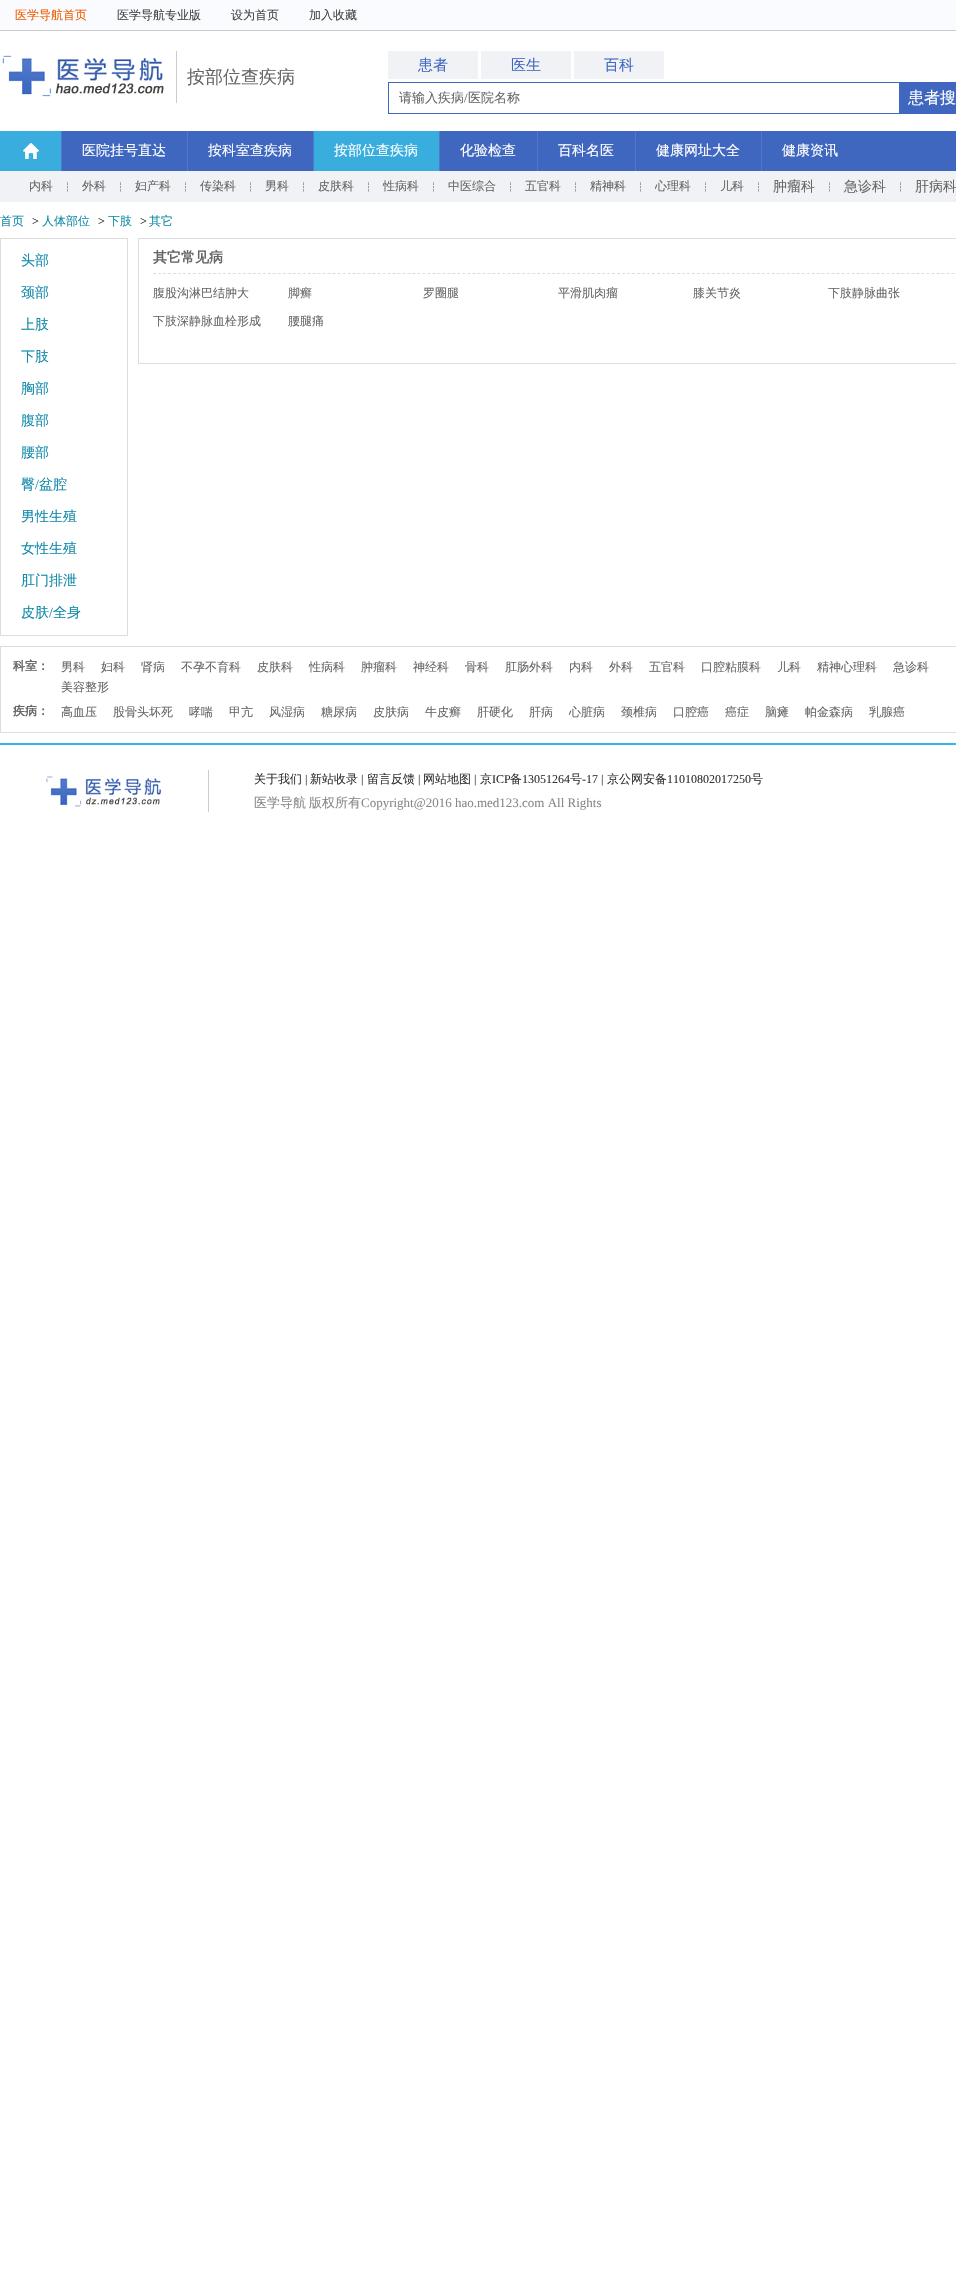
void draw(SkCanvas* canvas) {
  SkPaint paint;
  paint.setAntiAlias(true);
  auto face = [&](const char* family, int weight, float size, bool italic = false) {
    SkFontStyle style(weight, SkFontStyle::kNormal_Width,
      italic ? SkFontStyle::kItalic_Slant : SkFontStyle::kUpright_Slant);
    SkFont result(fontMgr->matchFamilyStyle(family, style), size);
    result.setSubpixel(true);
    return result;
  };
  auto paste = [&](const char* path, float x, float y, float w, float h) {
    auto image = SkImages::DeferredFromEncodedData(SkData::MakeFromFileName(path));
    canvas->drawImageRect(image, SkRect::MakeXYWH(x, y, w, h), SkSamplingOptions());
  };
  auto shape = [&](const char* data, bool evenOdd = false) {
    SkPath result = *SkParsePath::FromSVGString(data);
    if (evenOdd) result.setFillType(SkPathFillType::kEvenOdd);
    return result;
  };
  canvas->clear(0xffffffff);
  paint.setColor(0xfffafbfe);
  canvas->drawRect(SkRect::MakeXYWH(0, 0, 956, 30), paint);
  paint.setColor(0xffcccccc);
  canvas->drawRect(SkRect::MakeXYWH(0, 30, 956, 1), paint);
  paste("img/1.png", 2, 55, 162, 42);
  {
    const struct { float x, y, w, h; SkColor color; } items[] = {
      {176, 51, 1, 52, 0xffcccccc},
      {388, 51, 90, 28, 0xfff1f2f6},
      {481, 51, 90, 28, 0xfff1f2f6},
      {574, 51, 90, 28, 0xfff1f2f6},
    };
    for (auto [x, y, w, h, color] : items) {
      paint.setColor(color);
      canvas->drawRect(SkRect::MakeXYWH(x, y, w, h), paint);
    }
  }
  paint.setStroke(true);
  paint.setStrokeWidth(1);
  paint.setColor(0xff3f67c0);
  canvas->drawRect(SkRect::MakeXYWH(388.5f, 82.5f, 511, 31), paint);
  paint.setStroke(false);
  {
    const struct { float x, y, w, h; SkColor color; } items[] = {
      {900, 82, 56, 32, 0xff3f67c0},
      {62, 131, 894, 40, 0xff3f67c0},
      {0, 131, 61, 40, 0xff39adde},
    };
    for (auto [x, y, w, h, color] : items) {
      paint.setColor(color);
      canvas->drawRect(SkRect::MakeXYWH(x, y, w, h), paint);
    }
  }
  paste("img/2.png", 23, 143, 16, 16);
  {
    const struct { float x, y, w, h; SkColor color; } items[] = {
      {61, 131, 1, 40, 0xff5279c9},
      {187, 131, 1, 40, 0xff5279c9},
      {313, 131, 1, 40, 0xff5279c9},
      {314, 131, 125, 40, 0xff39adde},
      {439, 131, 1, 40, 0xff5279c9},
      {537, 131, 1, 40, 0xff5279c9},
      {635, 131, 1, 40, 0xff5279c9},
      {761, 131, 1, 40, 0xff5279c9},
      {0, 171, 956, 31, 0xfff1f2f6},
    };
    for (auto [x, y, w, h, color] : items) {
      paint.setColor(color);
      canvas->drawRect(SkRect::MakeXYWH(x, y, w, h), paint);
    }
  }
  paste("img/3.png", 67, 182, 1, 10);
  paste("img/3.png", 120, 182, 1, 10);
  paste("img/3.png", 185, 182, 1, 10);
  paste("img/3.png", 250, 182, 1, 10);
  paste("img/3.png", 303, 182, 1, 10);
  paste("img/3.png", 368, 182, 1, 10);
  paste("img/3.png", 433, 182, 1, 10);
  paste("img/3.png", 510, 182, 1, 10);
  paste("img/3.png", 575, 182, 1, 10);
  paste("img/3.png", 640, 182, 1, 10);
  paste("img/3.png", 705, 182, 1, 10);
  paste("img/3.png", 758, 182, 1, 10);
  paste("img/3.png", 829, 182, 1, 10);
  paste("img/3.png", 900, 182, 1, 10);
  paint.setStroke(true);
  paint.setColor(0xffdddddd);
  canvas->drawRect(SkRect::MakeXYWH(0.5f, 238.5f, 127, 397), paint);
  canvas->drawRect(SkRect::MakeXYWH(138.5f, 238.5f, 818, 125), paint);
  paint.setPathEffect(SkDashPathEffect::Make({{3, 1.99f}}, 0));
  canvas->drawPath(shape("M153 273.5H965"), paint);
  paint.setPathEffect(nullptr);
  canvas->drawRect(SkRect::MakeXYWH(0.5f, 646.5f, 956, 86), paint);
  paint.setStroke(false);
  paint.setColor(0xff35b5eb);
  canvas->drawRect(SkRect::MakeXYWH(0, 743, 956, 2), paint);
  paint.setColor(0xffcccccc);
  canvas->drawRect(SkRect::MakeXYWH(208, 770, 1, 42), paint);
  paste("img/4.png", 46, 776, 116, 31);
  auto f0 = face("WenQuanYi Zen Hei", 500, 12);
  paint.setColor(0xfff15b00);
  canvas->drawString("医学导航首页", 15, 19, f0, paint);
  paint.setColor(0xff444444);
  {
    const struct { const char* s; float x, y; } items[] = {
      {"医学导航专业版", 117, 19},
      {"设为首页", 231, 19},
      {"加入收藏", 309, 19},
    };
    for (auto [s, x, y] : items) {
      canvas->drawString(s, x, y, f0, paint);
    }
  }
  auto f1 = face("WenQuanYi Zen Hei", 500, 18);
  paint.setColor(0xff666666);
  canvas->drawString("按部位查疾病", 187, 83, f1, paint);
  auto f2 = face("WenQuanYi Zen Hei", 500, 15);
  paint.setColor(0xff3f67c0);
  {
    const struct { const char* s; float x, y; } items[] = {
      {"患者", 418, 70},
      {"医生", 511, 70},
      {"百科", 604, 70},
    };
    for (auto [s, x, y] : items) {
      canvas->drawString(s, x, y, f2, paint);
    }
  }
  auto f3 = face("WenQuanYi Zen Hei", 500, 13);
  paint.setColor(0xff666666);
  canvas->drawString("请输入疾病 医院名称", 399, 102, f3, paint);
  auto f4 = face("Liberation Serif", 400, 13);
  canvas->drawString("/", 464, 102, f4, paint);
  auto f5 = face("WenQuanYi Zen Hei", 500, 16);
  paint.setColor(0xffffffff);
  canvas->drawString("患者搜", 908, 103, f5, paint);
  auto f6 = face("WenQuanYi Zen Hei", 500, 14);
  {
    const struct { const char* s; float x, y; } items[] = {
      {"医院挂号直达", 82, 155},
      {"按科室查疾病", 208, 155},
      {"按部位查疾病", 334, 155},
      {"化验检查", 460, 155},
      {"百科名医", 558, 155},
      {"健康网址大全", 656, 155},
      {"健康资讯", 782, 155},
    };
    for (auto [s, x, y] : items) {
      canvas->drawString(s, x, y, f6, paint);
    }
  }
  paint.setColor(0xff666666);
  {
    const struct { const char* s; float x, y; } items[] = {
      {"内科", 29, 190},
      {"外科", 82, 190},
      {"妇产科", 135, 190},
      {"传染科", 200, 190},
      {"男科", 265, 190},
      {"皮肤科", 318, 190},
      {"性病科", 383, 190},
      {"中医综合", 448, 190},
      {"五官科", 525, 190},
      {"精神科", 590, 190},
      {"心理科", 655, 190},
      {"儿科", 720, 190},
    };
    for (auto [s, x, y] : items) {
      canvas->drawString(s, x, y, f0, paint);
    }
  }
  {
    const struct { const char* s; float x, y; } items[] = {
      {"肿瘤科", 773, 191},
      {"急诊科", 844, 191},
      {"肝病科", 915, 191},
    };
    for (auto [s, x, y] : items) {
      canvas->drawString(s, x, y, f6, paint);
    }
  }
  paint.setColor(0xff118aa9);
  canvas->drawString("首页", 0, 225, f0, paint);
  auto f7 = face("Liberation Serif", 400, 12);
  paint.setColor(0xff333333);
  canvas->drawString(">", 32, 225, f7, paint);
  paint.setColor(0xff118aa9);
  canvas->drawString("人体部位", 42, 225, f0, paint);
  paint.setColor(0xff333333);
  canvas->drawString(">", 98, 225, f7, paint);
  paint.setColor(0xff118aa9);
  canvas->drawString("下肢", 108, 225, f0, paint);
  paint.setColor(0xff333333);
  canvas->drawString(">", 140, 225, f7, paint);
  paint.setColor(0xff118aa9);
  canvas->drawString("其它", 149, 225, f0, paint);
  {
    const struct { const char* s; float x, y; } items[] = {
      {"头部", 21, 265},
      {"颈部", 21, 297},
      {"上肢", 21, 329},
      {"下肢", 21, 361},
      {"胸部", 21, 393},
      {"腹部", 21, 425},
      {"腰部", 21, 457},
      {"臀", 21, 489},
    };
    for (auto [s, x, y] : items) {
      canvas->drawString(s, x, y, f6, paint);
    }
  }
  auto f8 = face("Liberation Serif", 400, 14);
  canvas->drawString("/", 35, 489, f8, paint);
  {
    const struct { const char* s; float x, y; } items[] = {
      {"盆腔", 39, 489},
      {"男性生殖", 21, 521},
      {"女性生殖", 21, 553},
      {"肛门排泄", 21, 585},
      {"皮肤", 21, 617},
    };
    for (auto [s, x, y] : items) {
      canvas->drawString(s, x, y, f6, paint);
    }
  }
  canvas->drawString("/", 49, 617, f8, paint);
  canvas->drawString("全身", 53, 617, f6, paint);
  auto f9 = face("WenQuanYi Zen Hei", 700, 14);
  paint.setColor(0xff666666);
  canvas->drawString("其它常见病", 153, 262, f9, paint);
  {
    const struct { const char* s; float x, y; } items[] = {
      {"腹股沟淋巴结肿大", 153, 297},
      {"脚癣", 288, 297},
      {"罗圈腿", 423, 297},
      {"平滑肌肉瘤", 558, 297},
      {"膝关节炎", 693, 297},
      {"下肢静脉曲张", 828, 297},
      {"下肢深静脉血栓形成", 153, 325},
      {"腰腿痛", 288, 325},
    };
    for (auto [s, x, y] : items) {
      canvas->drawString(s, x, y, f0, paint);
    }
  }
  auto f10 = face("WenQuanYi Zen Hei", 700, 12);
  canvas->drawString("科室：", 13, 670, f10, paint);
  {
    const struct { const char* s; float x, y; } items[] = {
      {"男科", 61, 671},
      {"妇科", 101, 671},
      {"肾病", 141, 671},
      {"不孕不育科", 181, 671},
      {"皮肤科", 257, 671},
      {"性病科", 309, 671},
      {"肿瘤科", 361, 671},
      {"神经科", 413, 671},
      {"骨科", 465, 671},
      {"肛肠外科", 505, 671},
      {"内科", 569, 671},
      {"外科", 609, 671},
      {"五官科", 649, 671},
      {"口腔粘膜科", 701, 671},
      {"儿科", 777, 671},
      {"精神心理科", 817, 671},
      {"急诊科", 893, 671},
      {"美容整形", 61, 691},
    };
    for (auto [s, x, y] : items) {
      canvas->drawString(s, x, y, f0, paint);
    }
  }
  canvas->drawString("疾病：", 13, 715, f10, paint);
  {
    const struct { const char* s; float x, y; } items[] = {
      {"高血压", 61, 716},
      {"股骨头坏死", 113, 716},
      {"哮喘", 189, 716},
      {"甲亢", 229, 716},
      {"风湿病", 269, 716},
      {"糖尿病", 321, 716},
      {"皮肤病", 373, 716},
      {"牛皮癣", 425, 716},
      {"肝硬化", 477, 716},
      {"肝病", 529, 716},
      {"心脏病", 569, 716},
      {"颈椎病", 621, 716},
      {"口腔癌", 673, 716},
      {"癌症", 725, 716},
      {"脑瘫", 765, 716},
      {"帕金森病", 805, 716},
      {"乳腺癌", 869, 716},
    };
    for (auto [s, x, y] : items) {
      canvas->drawString(s, x, y, f0, paint);
    }
  }
  paint.setColor(0xff333333);
  canvas->drawString("关于我们", 254, 783, f0, paint);
  canvas->drawString("|", 305, 783, f7, paint);
  canvas->drawString("新站收录", 310, 783, f0, paint);
  canvas->drawString("|", 361, 783, f7, paint);
  canvas->drawString("留言反馈", 367, 783, f0, paint);
  canvas->drawString("|", 418, 783, f7, paint);
  canvas->drawString("网站地图", 423, 783, f0, paint);
  canvas->drawString("|", 474, 783, f7, paint);
  canvas->drawString("京", 480, 783, f0, paint);
  canvas->drawString("ICP", 492, 783, f7, paint);
  canvas->drawString("备", 510, 783, f0, paint);
  canvas->drawString("13051264", 522, 783, f7, paint);
  canvas->drawString("号", 570, 783, f0, paint);
  canvas->drawString("-17 |", 582, 783, f7, paint);
  canvas->drawString("京公网安备", 607, 783, f0, paint);
  canvas->drawString("11010802017250", 667, 783, f7, paint);
  canvas->drawString("号", 751, 783, f0, paint);
  paint.setColor(0xff888888);
  canvas->drawString("医学导航", 254, 807, f3, paint);
  canvas->drawString("版权所有", 309, 807, f3, paint);
  canvas->drawString("Copyright@2016 hao.med123.com All Rights", 361, 807, f4, paint);
}
